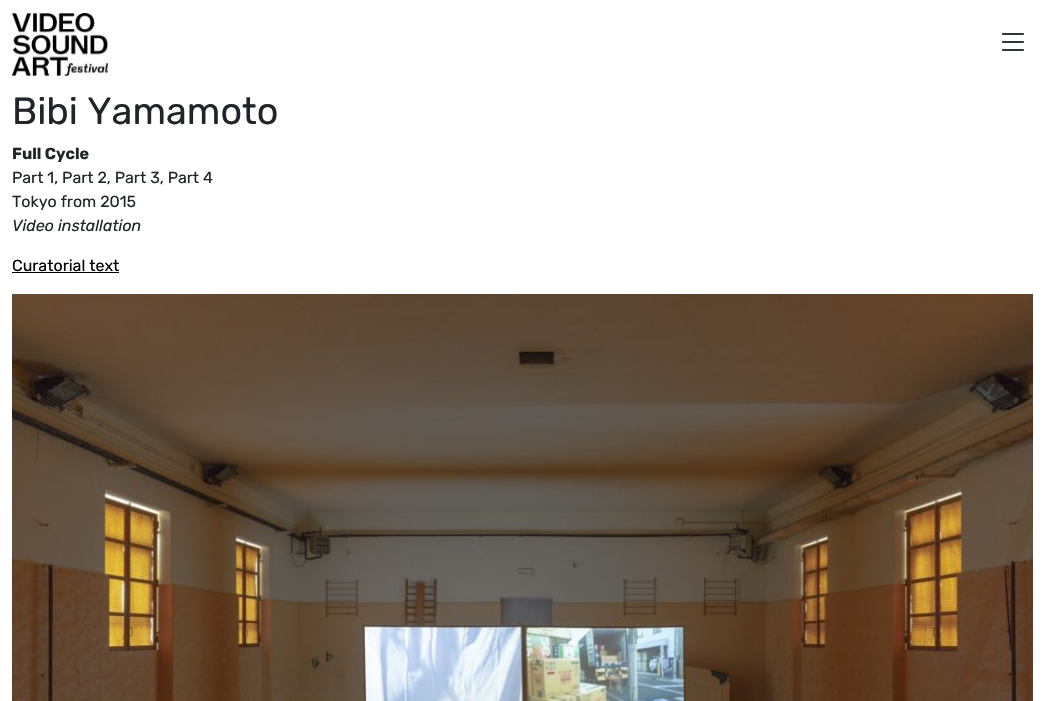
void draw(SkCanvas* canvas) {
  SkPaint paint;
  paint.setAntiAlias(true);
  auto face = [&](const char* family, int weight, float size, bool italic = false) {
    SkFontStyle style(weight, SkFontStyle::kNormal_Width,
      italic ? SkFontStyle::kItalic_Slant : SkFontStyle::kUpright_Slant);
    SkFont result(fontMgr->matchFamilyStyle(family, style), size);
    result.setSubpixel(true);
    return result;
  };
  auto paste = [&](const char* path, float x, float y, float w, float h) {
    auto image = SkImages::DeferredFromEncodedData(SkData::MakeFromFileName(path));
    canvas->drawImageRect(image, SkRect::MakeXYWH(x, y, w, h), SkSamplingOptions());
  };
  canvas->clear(0xffffffff);
  paste("img/1.png", 12, 13, 96, 63);
  paste("img/2.png", 1002, 33, 22, 18);
  paint.setColor(0xff000000);
  canvas->drawRect(SkRect::MakeXYWH(12, 272, 107, 1), paint);
  paste("img/3.png", 12, 294, 1021, 407);
  auto f0 = face("Rubik", 400, 37.75f);
  paint.setColor(0xff212529);
  canvas->drawString("Bibi Yamamoto", 12, 124, f0, paint);
  auto f1 = face("Rubik", 700, 16);
  canvas->drawString("Full Cycle", 12, 159, f1, paint);
  auto f2 = face("Rubik", 400, 16);
  canvas->drawString("Part 1, Part 2, Part 3, Part 4", 12, 183, f2, paint);
  canvas->drawString("Tokyo from 2015", 12, 207, f2, paint);
  auto f3 = face("Rubik", 300, 16, true);
  canvas->drawString("Video installation", 12, 231, f3, paint);
  paint.setColor(0xff000000);
  canvas->drawString("Curatorial text", 12, 271, f2, paint);
}
